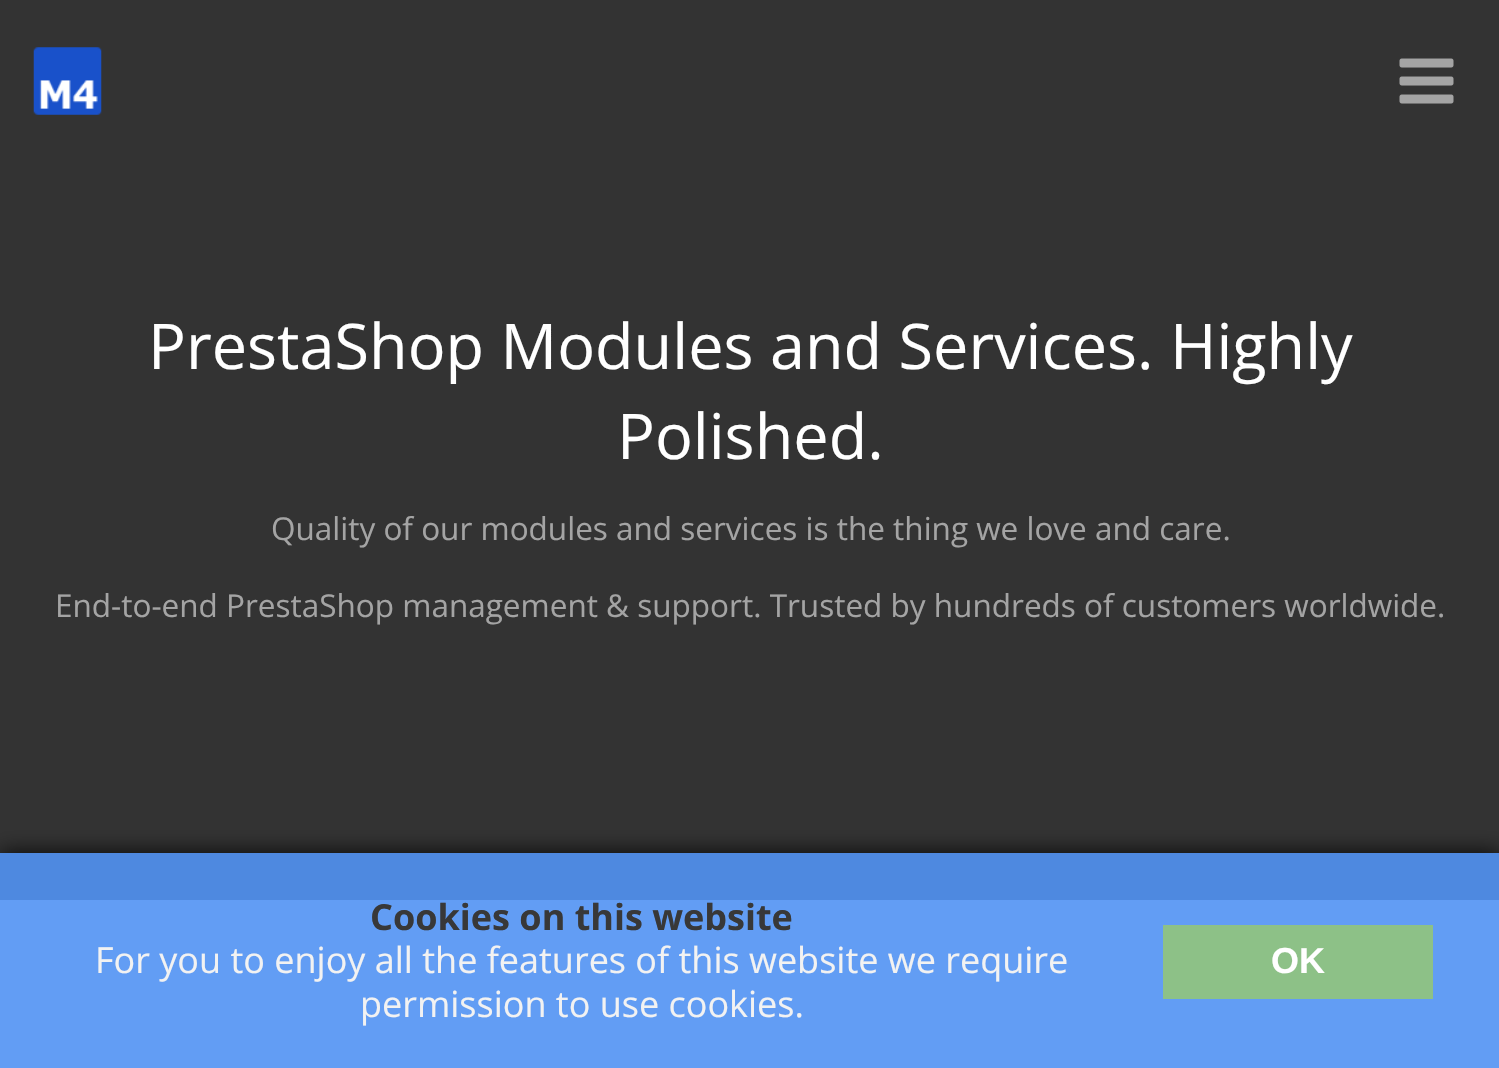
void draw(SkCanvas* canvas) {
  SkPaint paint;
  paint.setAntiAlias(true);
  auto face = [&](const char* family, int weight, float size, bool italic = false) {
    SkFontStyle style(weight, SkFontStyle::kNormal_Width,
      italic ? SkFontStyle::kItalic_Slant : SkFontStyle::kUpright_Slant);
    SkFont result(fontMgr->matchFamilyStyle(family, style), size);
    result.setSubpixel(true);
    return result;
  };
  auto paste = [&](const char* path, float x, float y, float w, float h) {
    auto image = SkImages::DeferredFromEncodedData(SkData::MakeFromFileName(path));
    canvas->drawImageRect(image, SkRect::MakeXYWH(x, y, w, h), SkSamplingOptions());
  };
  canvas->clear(0xff629df4);
  paint.setColor(0xff333333);
  canvas->drawRect(SkRect::MakeXYWH(0, 0, 1499, 853), paint);
  paste("img/1.png", 33, 47, 69, 68);
  paste("img/2.png", 1399, 58, 55, 46);
  paint.setColor(0xff4e89e0);
  canvas->drawRect(SkRect::MakeXYWH(0, 853, 1499, 47), paint);
  canvas->save();
  canvas->clipRect(SkRect::MakeXYWH(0, 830, 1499, 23));
  paint.setColor(0xff050505);
  paint.setMaskFilter(SkMaskFilter::MakeBlur(kNormal_SkBlurStyle, 11));
  canvas->drawRect(SkRect::MakeXYWH(0, 853, 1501, 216), paint);
  paint.setMaskFilter(nullptr);
  canvas->restore();
  paint.setColor(0xff8dc187);
  canvas->drawRect(SkRect::MakeXYWH(1163, 925, 270, 74), paint);
  auto f0 = face("Open Sans", 400, 63);
  paint.setColor(0xffffffff);
  canvas->drawString("PrestaShop Modules and Services. Highly", 148, 369, f0, paint);
  canvas->drawString("Polished.", 617, 459, f0, paint);
  auto f1 = face("Open Sans", 400, 31.5f);
  paint.setColor(0xffa4a4a4);
  canvas->drawString("Quality of our modules and services is the thing we love and care.", 271, 540, f1, paint);
  canvas->drawString("End-to-end PrestaShop management & support. Trusted by hundreds of customers worldwide.", 55, 617, f1, paint);
  auto f2 = face("Open Sans", 700, 36);
  paint.setColor(0xff383838);
  canvas->drawString("Cookies on this website", 370, 930, f2, paint);
  auto f3 = face("Open Sans", 400, 36);
  paint.setColor(0xfff2f2f2);
  canvas->drawString("For you to enjoy all the features of this website we require", 95, 973, f3, paint);
  canvas->drawString("permission to use cookies.", 360, 1017, f3, paint);
  auto f4 = face("Liberation Sans", 700, 36);
  paint.setColor(0xffffffff);
  canvas->drawString("OK", 1271, 973, f4, paint);
}
